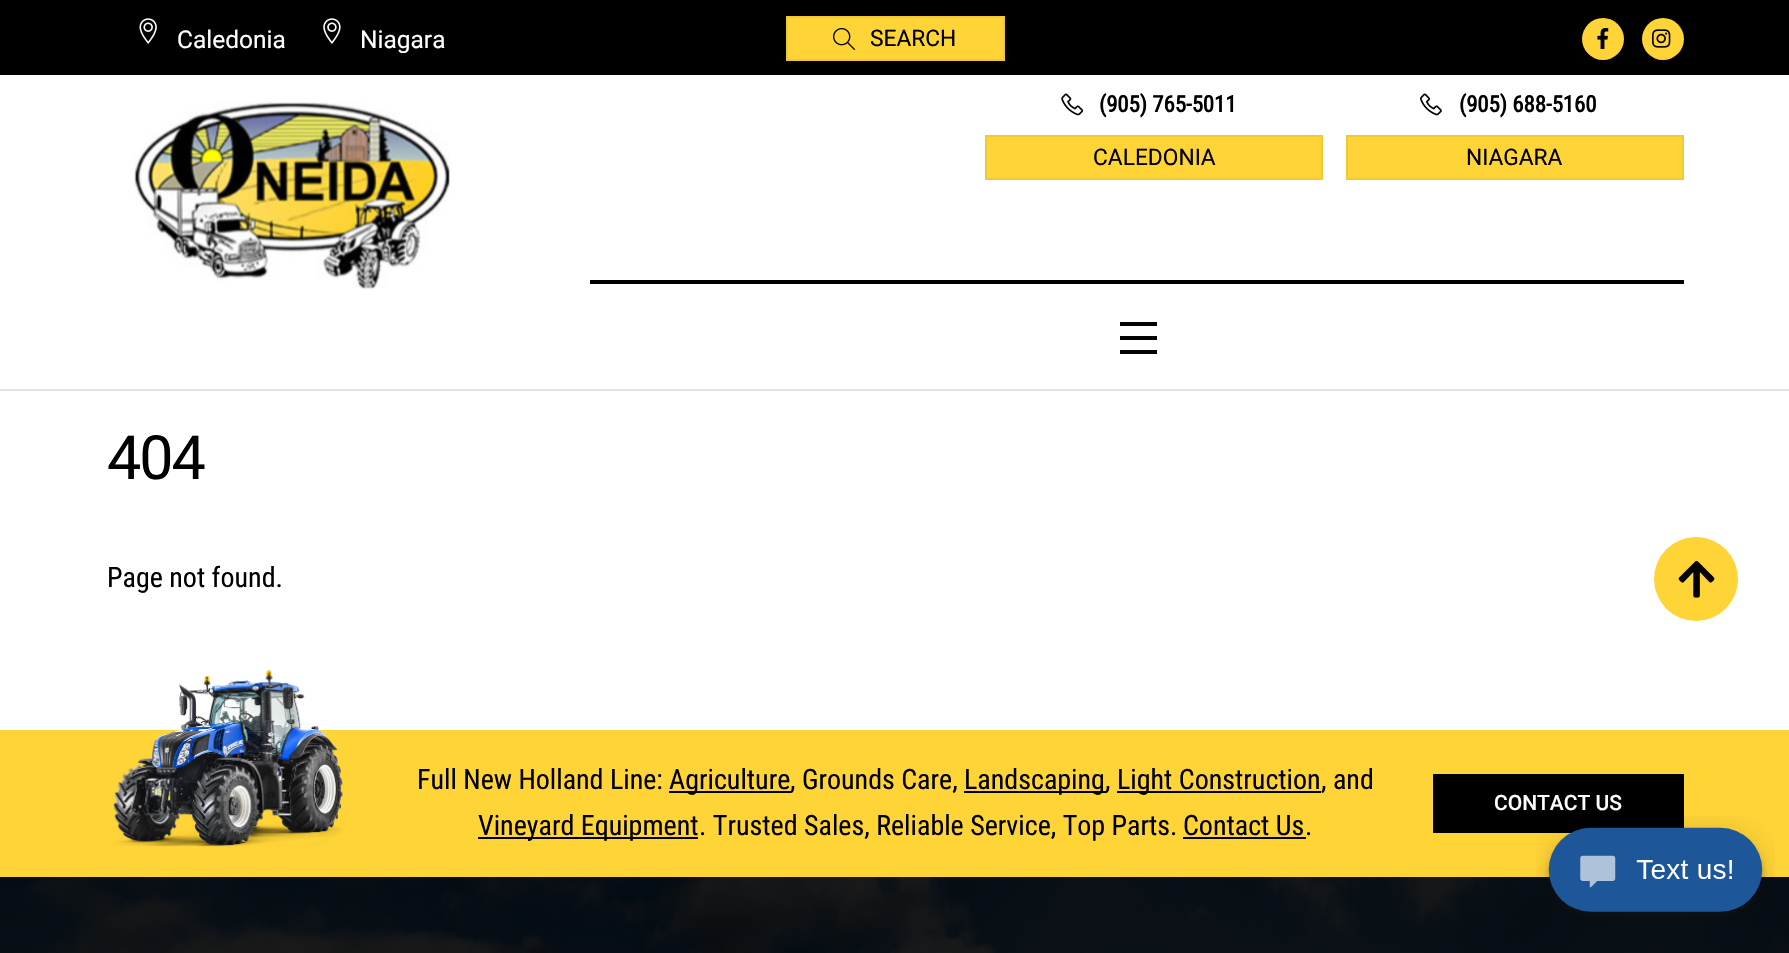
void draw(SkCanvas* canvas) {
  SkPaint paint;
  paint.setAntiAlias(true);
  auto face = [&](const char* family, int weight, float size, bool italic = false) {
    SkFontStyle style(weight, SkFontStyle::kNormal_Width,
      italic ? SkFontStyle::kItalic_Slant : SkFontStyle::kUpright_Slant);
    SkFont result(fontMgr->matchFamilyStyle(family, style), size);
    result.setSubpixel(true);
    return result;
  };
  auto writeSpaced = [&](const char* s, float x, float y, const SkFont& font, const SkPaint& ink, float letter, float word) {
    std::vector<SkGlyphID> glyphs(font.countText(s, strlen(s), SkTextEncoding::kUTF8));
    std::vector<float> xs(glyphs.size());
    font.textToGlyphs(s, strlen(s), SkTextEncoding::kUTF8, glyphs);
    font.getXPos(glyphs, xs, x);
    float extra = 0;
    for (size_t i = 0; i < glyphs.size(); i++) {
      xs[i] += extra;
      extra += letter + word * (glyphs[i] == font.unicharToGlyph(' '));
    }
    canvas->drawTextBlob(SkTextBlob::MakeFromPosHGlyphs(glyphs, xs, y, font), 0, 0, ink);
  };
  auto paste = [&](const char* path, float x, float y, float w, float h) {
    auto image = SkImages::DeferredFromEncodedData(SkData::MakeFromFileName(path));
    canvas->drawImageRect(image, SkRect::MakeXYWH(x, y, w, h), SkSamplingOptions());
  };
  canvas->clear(0xffffffff);
  paint.setColor(0xff000000);
  canvas->drawRect(SkRect::MakeXYWH(0, 0, 1789, 75), paint);
  paste("img/1.png", 139, 18, 18, 26);
  paste("img/2.png", 323, 18, 18, 26);
  paint.setColor(0xffffd437);
  canvas->drawRect(SkRect::MakeXYWH(787, 17, 217, 43), paint);
  paint.setStroke(true);
  paint.setStrokeWidth(2);
  paint.setColor(0xfff2c934);
  canvas->drawRect(SkRect::MakeXYWH(787, 17, 217, 43), paint);
  paste("img/3.png", 833, 28, 23, 23);
  paint.setStroke(false);
  paint.setColor(0xffffd437);
  canvas->drawCircle(1603, 39, 21, paint);
  paste("img/4.png", 1597, 28, 12, 21);
  canvas->drawCircle(1663, 39, 21, paint);
  paste("img/5.png", 1652, 29, 19, 19);
  paint.setColor(0xffe3e3e3);
  canvas->drawRect(SkRect::MakeXYWH(0, 389, 1789, 2), paint);
  paste("img/6.png", 134, 101, 316, 188);
  paste("img/7.png", 1061, 93, 23, 23);
  paint.setColor(0xffffd437);
  canvas->drawRect(SkRect::MakeXYWH(986, 136, 336, 43), paint);
  paint.setStroke(true);
  paint.setColor(0xfff2c934);
  canvas->drawRect(SkRect::MakeXYWH(986, 136, 336, 43), paint);
  paste("img/8.png", 1420, 93, 22, 23);
  paint.setStroke(false);
  paint.setColor(0xffffd437);
  canvas->drawRect(SkRect::MakeXYWH(1347, 136, 336, 43), paint);
  paint.setStroke(true);
  paint.setColor(0xfff2c934);
  canvas->drawRect(SkRect::MakeXYWH(1347, 136, 336, 43), paint);
  paint.setStroke(false);
  {
    const struct { float x, y, w, h; SkColor color; } items[] = {
      {590, 280, 1094, 4, 0xff000000},
      {1120, 350, 37, 4, 0xff030303},
      {1120, 322, 37, 4, 0xff030303},
      {1120, 336, 37, 4, 0xff030303},
    };
    for (auto [x, y, w, h, color] : items) {
      paint.setColor(color);
      canvas->drawRect(SkRect::MakeXYWH(x, y, w, h), paint);
    }
  }
  paste("img/9.png", 0, 877, 1789, 76);
  paint.setColor(0xffffd437);
  canvas->drawCircle(1696, 579, 42, paint);
  paste("img/10.png", 1678, 560, 37, 38);
  canvas->drawRect(SkRect::MakeXYWH(0, 730, 1789, 147), paint);
  paste("img/11.png", 113, 669, 230, 178);
  {
    const struct { float x, y, w, h; SkColor color; } items[] = {
      {669, 791, 122, 2, 0xff000000},
      {964, 791, 142, 2, 0xff000000},
      {1117, 791, 204, 2, 0xff000000},
      {478, 837, 220, 2, 0xff000000},
      {1183, 837, 123, 2, 0xff000000},
      {1433, 774, 251, 59, 0xff000000},
    };
    for (auto [x, y, w, h, color] : items) {
      paint.setColor(color);
      canvas->drawRect(SkRect::MakeXYWH(x, y, w, h), paint);
    }
  }
  paste("img/12.png", 1536, 816, 239, 100);
  auto f0 = face("Roboto", 400, 24.5f);
  paint.setColor(0xffffffff);
  canvas->drawString("Caledonia", 177, 48, f0, paint);
  canvas->drawString("Niagara", 360, 48, f0, paint);
  auto f1 = face("Roboto", 400, 22.75f);
  paint.setColor(0xff000000);
  canvas->drawString("SEARCH", 870, 46, f1, paint);
  auto f2 = face("Roboto Condensed", 700, 22.75f);
  canvas->drawString("(905) 765-5011", 1099, 112, f2, paint);
  canvas->drawString("CALEDONIA", 1093, 165, f1, paint);
  canvas->drawString("(905) 688-5160", 1459, 112, f2, paint);
  canvas->drawString("NIAGARA", 1466, 165, f1, paint);
  auto f3 = face("Roboto", 400, 61);
  writeSpaced("404", 107, 479, f3, paint, -2, 0);
  auto f4 = face("Roboto Condensed", 400, 28);
  {
    const struct { const char* s; float x, y; } items[] = {
      {"Page not found.", 107, 587},
      {"Full New Holland Line:", 417, 789},
      {"Agriculture", 669, 789},
      {", Grounds Care,", 790, 789},
      {"Landscaping", 964, 789},
      {",", 1105, 789},
      {"Light Construction", 1117, 789},
      {", and", 1321, 789},
      {"Vineyard Equipment", 478, 835},
      {". Trusted Sales, Reliable Service, Top Parts.", 699, 835},
      {"Contact Us", 1183, 835},
      {".", 1305, 835},
    };
    for (auto [s, x, y] : items) {
      canvas->drawString(s, x, y, f4, paint);
    }
  }
  auto f5 = face("Roboto", 500, 21);
  paint.setColor(0xffffffff);
  canvas->drawString("CONTACT US", 1494, 810, f5, paint);
}
